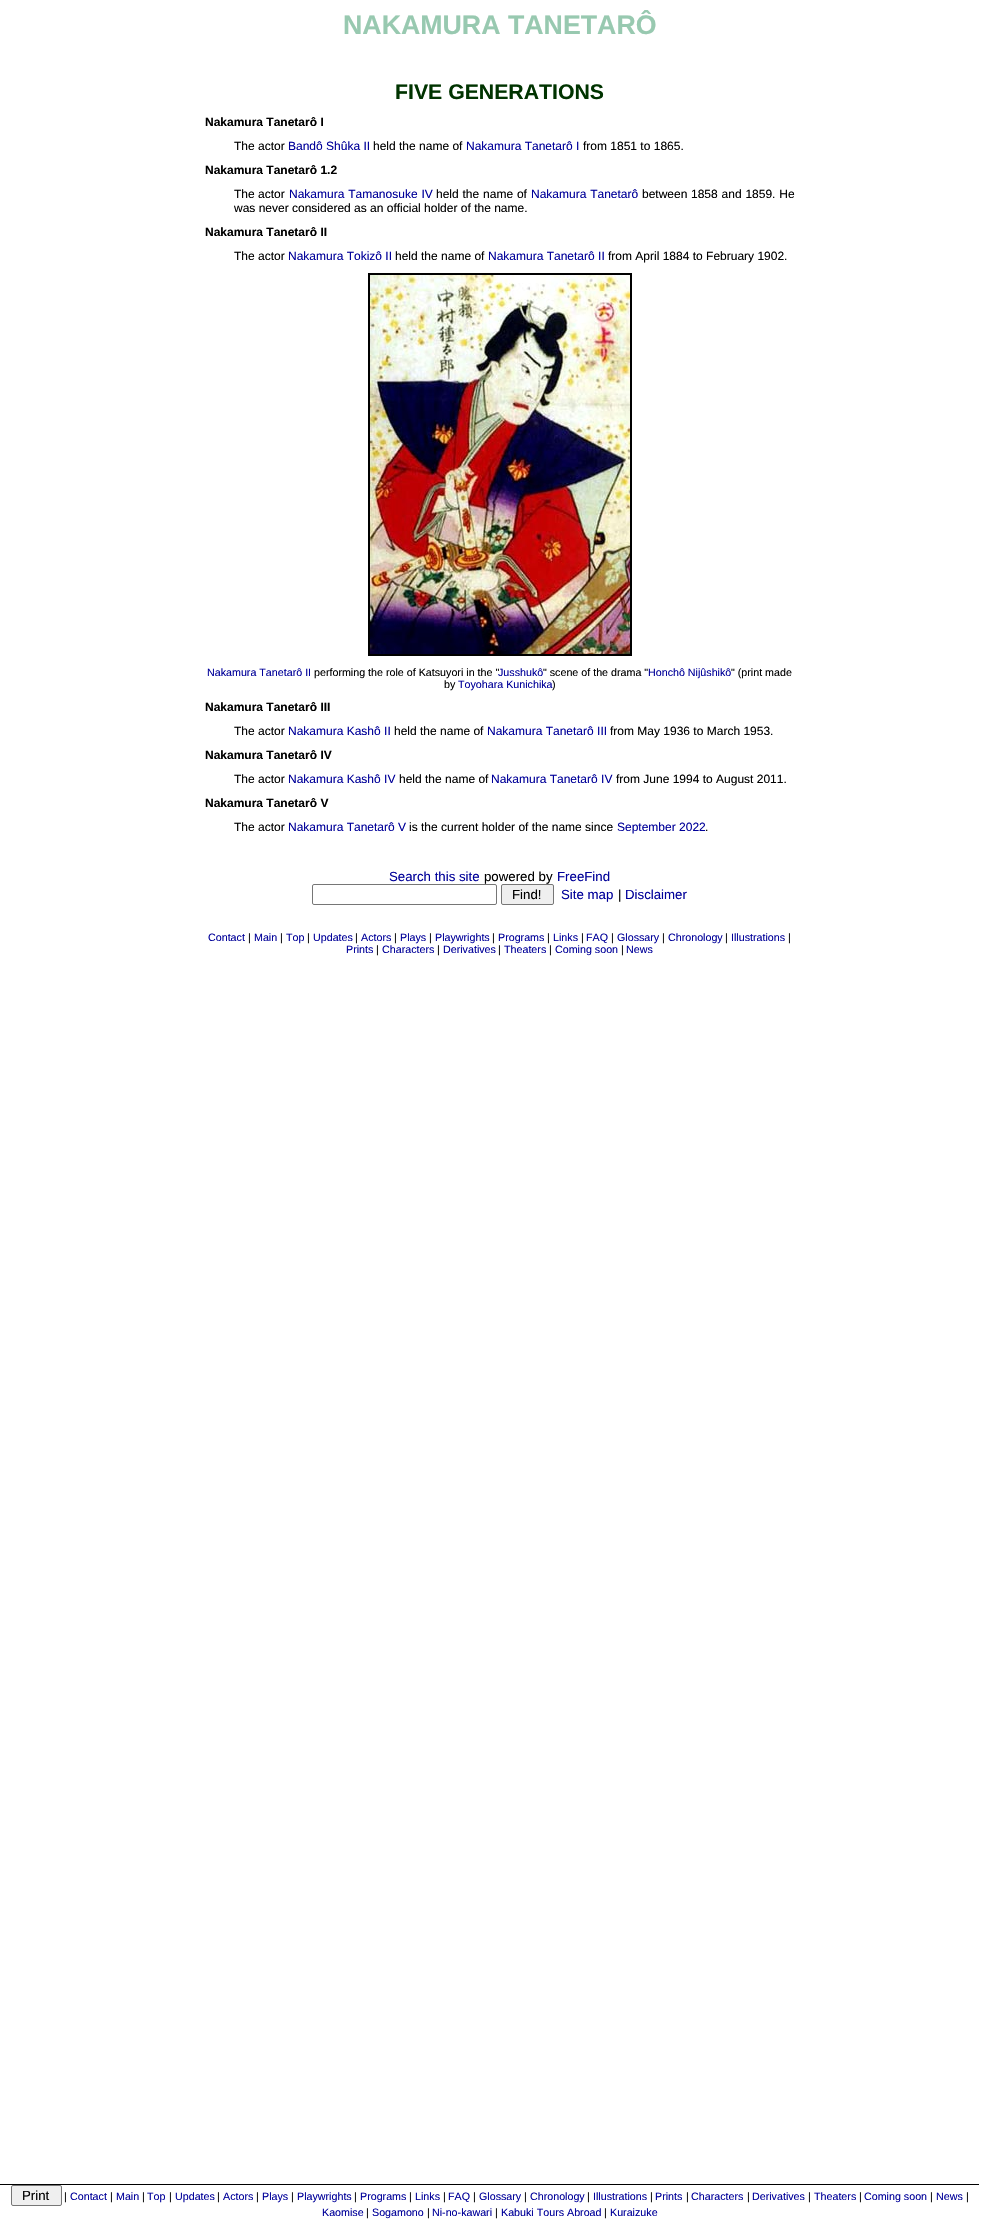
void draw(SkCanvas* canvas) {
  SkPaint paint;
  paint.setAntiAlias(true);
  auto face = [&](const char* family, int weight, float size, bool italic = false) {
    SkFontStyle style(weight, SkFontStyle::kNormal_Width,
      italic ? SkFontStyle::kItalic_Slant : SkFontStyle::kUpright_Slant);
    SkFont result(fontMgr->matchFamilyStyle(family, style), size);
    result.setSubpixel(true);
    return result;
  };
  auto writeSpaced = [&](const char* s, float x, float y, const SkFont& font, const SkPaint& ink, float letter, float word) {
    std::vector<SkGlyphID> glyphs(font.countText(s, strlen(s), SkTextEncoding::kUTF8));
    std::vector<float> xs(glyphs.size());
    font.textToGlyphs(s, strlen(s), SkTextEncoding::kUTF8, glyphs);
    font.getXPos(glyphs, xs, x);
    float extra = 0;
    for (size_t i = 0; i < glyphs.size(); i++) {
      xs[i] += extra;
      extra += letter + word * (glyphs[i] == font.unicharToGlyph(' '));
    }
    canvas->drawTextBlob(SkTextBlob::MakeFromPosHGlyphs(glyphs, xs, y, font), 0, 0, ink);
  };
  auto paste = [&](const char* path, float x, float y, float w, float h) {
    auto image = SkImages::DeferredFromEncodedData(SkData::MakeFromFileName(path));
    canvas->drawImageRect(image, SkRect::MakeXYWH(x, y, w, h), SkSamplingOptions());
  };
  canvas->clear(0xffffffff);
  paint.setStroke(true);
  paint.setStrokeWidth(2);
  paint.setColor(0xff000000);
  canvas->drawRect(SkRect::MakeXYWH(369, 274, 262, 381), paint);
  paste("img/1.png", 370, 275, 260, 379);
  paint.setStrokeWidth(1);
  paint.setColor(0xff767676);
  canvas->drawRoundRect(SkRect::MakeXYWH(312.5f, 884.5f, 184, 20), 1.5f, 1.5f, paint);
  paint.setStroke(false);
  paint.setColor(0xffefefef);
  canvas->drawRoundRect(SkRect::MakeXYWH(501.5f, 884.5f, 52, 20), 1.5f, 1.5f, paint);
  paint.setStroke(true);
  paint.setColor(0xff767676);
  canvas->drawRoundRect(SkRect::MakeXYWH(501.5f, 884.5f, 52, 20), 1.5f, 1.5f, paint);
  paint.setStroke(false);
  paint.setColor(0xff000000);
  canvas->drawRect(SkRect::MakeXYWH(0, 2184, 979, 1), paint);
  paint.setColor(0xffefefef);
  canvas->drawRoundRect(SkRect::MakeXYWH(11.5f, 2185.5f, 50, 20), 1.5f, 1.5f, paint);
  paint.setStroke(true);
  paint.setColor(0xff767676);
  canvas->drawRoundRect(SkRect::MakeXYWH(11.5f, 2185.5f, 50, 20), 1.5f, 1.5f, paint);
  auto f0 = face("Liberation Sans", 700, 26.75f);
  paint.setStroke(false);
  paint.setColor(0xff98c9b0);
  canvas->drawString("NAKAMURA TANETARÔ", 343, 34, f0, paint);
  auto f1 = face("Liberation Sans", 700, 21.25f);
  paint.setColor(0xff003300);
  canvas->drawString("FIVE GENERATIONS", 395, 99, f1, paint);
  auto f2 = face("Liberation Sans", 700, 12);
  paint.setColor(0xff000000);
  canvas->drawString("Nakamura Tanetarô I", 205, 126, f2, paint);
  auto f3 = face("Liberation Sans", 400, 12);
  canvas->drawString("The actor", 234, 150, f3, paint);
  paint.setColor(0xff000099);
  canvas->drawString("Bandô Shûka II", 288, 150, f3, paint);
  paint.setColor(0xff000000);
  canvas->drawString("held the name of", 373, 150, f3, paint);
  paint.setColor(0xff000099);
  canvas->drawString("Nakamura Tanetarô I", 466, 150, f3, paint);
  paint.setColor(0xff000000);
  canvas->drawString("from 1851 to 1865.", 583, 150, f3, paint);
  canvas->drawString("Nakamura Tanetarô 1.2", 205, 174, f2, paint);
  canvas->drawString("The actor", 234, 198, f3, paint);
  paint.setColor(0xff000099);
  writeSpaced("Nakamura Tamanosuke IV", 289, 198, f3, paint, 0, 0.5f);
  paint.setColor(0xff000000);
  writeSpaced("held the name of", 436, 198, f3, paint, 0, 0.5f);
  paint.setColor(0xff000099);
  writeSpaced("Nakamura Tanetarô", 531, 198, f3, paint, 0, 0.5f);
  paint.setColor(0xff000000);
  canvas->drawString("between", 642, 198, f3, paint);
  writeSpaced("1858 and 1859. He", 691, 198, f3, paint, 0, 0.5f);
  canvas->drawString("was never considered as an official holder of the name.", 234, 212, f3, paint);
  canvas->drawString("Nakamura Tanetarô II", 205, 236, f2, paint);
  canvas->drawString("The actor", 234, 260, f3, paint);
  paint.setColor(0xff000099);
  canvas->drawString("Nakamura Tokizô II", 288, 260, f3, paint);
  paint.setColor(0xff000000);
  canvas->drawString("held the name of", 395, 260, f3, paint);
  paint.setColor(0xff000099);
  canvas->drawString("Nakamura Tanetarô II", 488, 260, f3, paint);
  paint.setColor(0xff000000);
  canvas->drawString("from April 1884 to February 1902.", 608, 260, f3, paint);
  auto f4 = face("Liberation Sans", 400, 10.7f);
  paint.setColor(0xff000099);
  canvas->drawString("Nakamura Tanetarô II", 207, 676, f4, paint);
  paint.setColor(0xff000000);
  canvas->drawString("performing the role of Katsuyori in the \"", 314, 676, f4, paint);
  paint.setColor(0xff000099);
  canvas->drawString("Jusshukô", 498, 676, f4, paint);
  paint.setColor(0xff000000);
  canvas->drawString("\" scene of the drama \"", 543, 676, f4, paint);
  paint.setColor(0xff000099);
  canvas->drawString("Honchô Nijûshikô", 648, 676, f4, paint);
  paint.setColor(0xff000000);
  canvas->drawString("\" (print made", 731, 676, f4, paint);
  canvas->drawString("by", 444, 688, f4, paint);
  paint.setColor(0xff000099);
  canvas->drawString("Toyohara Kunichika", 458, 688, f4, paint);
  paint.setColor(0xff000000);
  canvas->drawString(")", 552, 688, f4, paint);
  canvas->drawString("Nakamura Tanetarô III", 205, 711, f2, paint);
  canvas->drawString("The actor", 234, 735, f3, paint);
  paint.setColor(0xff000099);
  canvas->drawString("Nakamura Kashô II", 288, 735, f3, paint);
  paint.setColor(0xff000000);
  canvas->drawString("held the name of", 394, 735, f3, paint);
  paint.setColor(0xff000099);
  canvas->drawString("Nakamura Tanetarô III", 487, 735, f3, paint);
  paint.setColor(0xff000000);
  canvas->drawString("from May 1936 to March 1953.", 610, 735, f3, paint);
  canvas->drawString("Nakamura Tanetarô IV", 205, 759, f2, paint);
  canvas->drawString("The actor", 234, 783, f3, paint);
  paint.setColor(0xff000099);
  canvas->drawString("Nakamura Kashô IV", 288, 783, f3, paint);
  paint.setColor(0xff000000);
  canvas->drawString("held the name of", 399, 783, f3, paint);
  paint.setColor(0xff000099);
  canvas->drawString("Nakamura Tanetarô IV", 491, 783, f3, paint);
  paint.setColor(0xff000000);
  canvas->drawString("from June 1994 to August 2011.", 616, 783, f3, paint);
  canvas->drawString("Nakamura Tanetarô V", 205, 807, f2, paint);
  canvas->drawString("The actor", 234, 831, f3, paint);
  paint.setColor(0xff000099);
  canvas->drawString("Nakamura Tanetarô V", 288, 831, f3, paint);
  paint.setColor(0xff000000);
  canvas->drawString("is the current holder of the name since", 409, 831, f3, paint);
  paint.setColor(0xff000099);
  canvas->drawString("September 2022", 617, 831, f3, paint);
  paint.setColor(0xff000000);
  canvas->drawString(".", 705, 831, f3, paint);
  auto f5 = face("Liberation Sans", 400, 13.25f);
  paint.setColor(0xff000099);
  canvas->drawString("Search this site", 389, 881, f5, paint);
  paint.setColor(0xff000000);
  canvas->drawString("powered by", 484, 881, f5, paint);
  paint.setColor(0xff000099);
  canvas->drawString("FreeFind", 557, 881, f5, paint);
  paint.setColor(0xff000000);
  canvas->drawString("Find!", 512, 899, f5, paint);
  paint.setColor(0xff000099);
  canvas->drawString("Site map", 561, 899, f5, paint);
  paint.setColor(0xff000000);
  canvas->drawString("|", 618, 899, f5, paint);
  paint.setColor(0xff000099);
  canvas->drawString("Disclaimer", 625, 899, f5, paint);
  canvas->drawString("Contact", 208, 941, f4, paint);
  paint.setColor(0xff000000);
  canvas->drawString("|", 248, 941, f4, paint);
  paint.setColor(0xff000099);
  canvas->drawString("Main", 254, 941, f4, paint);
  paint.setColor(0xff000000);
  canvas->drawString("|", 280, 941, f4, paint);
  paint.setColor(0xff000099);
  canvas->drawString("Top", 286, 941, f4, paint);
  paint.setColor(0xff000000);
  canvas->drawString("|", 307, 941, f4, paint);
  paint.setColor(0xff000099);
  canvas->drawString("Updates", 313, 941, f4, paint);
  paint.setColor(0xff000000);
  canvas->drawString("|", 355, 941, f4, paint);
  paint.setColor(0xff000099);
  canvas->drawString("Actors", 361, 941, f4, paint);
  paint.setColor(0xff000000);
  canvas->drawString("|", 394, 941, f4, paint);
  paint.setColor(0xff000099);
  canvas->drawString("Plays", 400, 941, f4, paint);
  paint.setColor(0xff000000);
  canvas->drawString("|", 429, 941, f4, paint);
  paint.setColor(0xff000099);
  canvas->drawString("Playwrights", 435, 941, f4, paint);
  paint.setColor(0xff000000);
  canvas->drawString("|", 492, 941, f4, paint);
  paint.setColor(0xff000099);
  canvas->drawString("Programs", 498, 941, f4, paint);
  paint.setColor(0xff000000);
  canvas->drawString("|", 547, 941, f4, paint);
  paint.setColor(0xff000099);
  canvas->drawString("Links", 553, 941, f4, paint);
  paint.setColor(0xff000000);
  canvas->drawString("|", 581, 941, f4, paint);
  paint.setColor(0xff000099);
  canvas->drawString("FAQ", 586, 941, f4, paint);
  paint.setColor(0xff000000);
  canvas->drawString("|", 611, 941, f4, paint);
  paint.setColor(0xff000099);
  canvas->drawString("Glossary", 617, 941, f4, paint);
  paint.setColor(0xff000000);
  canvas->drawString("|", 662, 941, f4, paint);
  paint.setColor(0xff000099);
  canvas->drawString("Chronology", 668, 941, f4, paint);
  paint.setColor(0xff000000);
  canvas->drawString("|", 725, 941, f4, paint);
  paint.setColor(0xff000099);
  canvas->drawString("Illustrations", 731, 941, f4, paint);
  paint.setColor(0xff000000);
  canvas->drawString("|", 788, 941, f4, paint);
  paint.setColor(0xff000099);
  canvas->drawString("Prints", 346, 953, f4, paint);
  paint.setColor(0xff000000);
  canvas->drawString("|", 376, 953, f4, paint);
  paint.setColor(0xff000099);
  canvas->drawString("Characters", 382, 953, f4, paint);
  paint.setColor(0xff000000);
  canvas->drawString("|", 437, 953, f4, paint);
  paint.setColor(0xff000099);
  canvas->drawString("Derivatives", 443, 953, f4, paint);
  paint.setColor(0xff000000);
  canvas->drawString("|", 498, 953, f4, paint);
  paint.setColor(0xff000099);
  canvas->drawString("Theaters", 504, 953, f4, paint);
  paint.setColor(0xff000000);
  canvas->drawString("|", 549, 953, f4, paint);
  paint.setColor(0xff000099);
  canvas->drawString("Coming soon", 555, 953, f4, paint);
  paint.setColor(0xff000000);
  canvas->drawString("|", 621, 953, f4, paint);
  paint.setColor(0xff000099);
  canvas->drawString("News", 626, 953, f4, paint);
  paint.setColor(0xff000000);
  canvas->drawString("Print", 22, 2200, f5, paint);
  canvas->drawString("|", 64, 2200, f4, paint);
  paint.setColor(0xff000099);
  canvas->drawString("Contact", 70, 2200, f4, paint);
  paint.setColor(0xff000000);
  canvas->drawString("|", 110, 2200, f4, paint);
  paint.setColor(0xff000099);
  canvas->drawString("Main", 116, 2200, f4, paint);
  paint.setColor(0xff000000);
  canvas->drawString("|", 142, 2200, f4, paint);
  paint.setColor(0xff000099);
  canvas->drawString("Top", 147, 2200, f4, paint);
  paint.setColor(0xff000000);
  canvas->drawString("|", 169, 2200, f4, paint);
  paint.setColor(0xff000099);
  canvas->drawString("Updates", 175, 2200, f4, paint);
  paint.setColor(0xff000000);
  canvas->drawString("|", 217, 2200, f4, paint);
  paint.setColor(0xff000099);
  canvas->drawString("Actors", 223, 2200, f4, paint);
  paint.setColor(0xff000000);
  canvas->drawString("|", 256, 2200, f4, paint);
  paint.setColor(0xff000099);
  canvas->drawString("Plays", 262, 2200, f4, paint);
  paint.setColor(0xff000000);
  canvas->drawString("|", 291, 2200, f4, paint);
  paint.setColor(0xff000099);
  canvas->drawString("Playwrights", 297, 2200, f4, paint);
  paint.setColor(0xff000000);
  canvas->drawString("|", 354, 2200, f4, paint);
  paint.setColor(0xff000099);
  canvas->drawString("Programs", 360, 2200, f4, paint);
  paint.setColor(0xff000000);
  canvas->drawString("|", 409, 2200, f4, paint);
  paint.setColor(0xff000099);
  canvas->drawString("Links", 415, 2200, f4, paint);
  paint.setColor(0xff000000);
  canvas->drawString("|", 443, 2200, f4, paint);
  paint.setColor(0xff000099);
  canvas->drawString("FAQ", 448, 2200, f4, paint);
  paint.setColor(0xff000000);
  canvas->drawString("|", 473, 2200, f4, paint);
  paint.setColor(0xff000099);
  canvas->drawString("Glossary", 479, 2200, f4, paint);
  paint.setColor(0xff000000);
  canvas->drawString("|", 524, 2200, f4, paint);
  paint.setColor(0xff000099);
  canvas->drawString("Chronology", 530, 2200, f4, paint);
  paint.setColor(0xff000000);
  canvas->drawString("|", 587, 2200, f4, paint);
  paint.setColor(0xff000099);
  canvas->drawString("Illustrations", 593, 2200, f4, paint);
  paint.setColor(0xff000000);
  canvas->drawString("|", 650, 2200, f4, paint);
  paint.setColor(0xff000099);
  canvas->drawString("Prints", 655, 2200, f4, paint);
  paint.setColor(0xff000000);
  canvas->drawString("|", 686, 2200, f4, paint);
  paint.setColor(0xff000099);
  canvas->drawString("Characters", 691, 2200, f4, paint);
  paint.setColor(0xff000000);
  canvas->drawString("|", 747, 2200, f4, paint);
  paint.setColor(0xff000099);
  canvas->drawString("Derivatives", 752, 2200, f4, paint);
  paint.setColor(0xff000000);
  canvas->drawString("|", 808, 2200, f4, paint);
  paint.setColor(0xff000099);
  canvas->drawString("Theaters", 814, 2200, f4, paint);
  paint.setColor(0xff000000);
  canvas->drawString("|", 859, 2200, f4, paint);
  paint.setColor(0xff000099);
  canvas->drawString("Coming soon", 864, 2200, f4, paint);
  paint.setColor(0xff000000);
  canvas->drawString("|", 930, 2200, f4, paint);
  paint.setColor(0xff000099);
  canvas->drawString("News", 936, 2200, f4, paint);
  paint.setColor(0xff000000);
  canvas->drawString("|", 966, 2200, f4, paint);
  paint.setColor(0xff000099);
  canvas->drawString("Kaomise", 322, 2216, f4, paint);
  paint.setColor(0xff000000);
  canvas->drawString("|", 366, 2216, f4, paint);
  paint.setColor(0xff000099);
  canvas->drawString("Sogamono", 372, 2216, f4, paint);
  paint.setColor(0xff000000);
  canvas->drawString("|", 427, 2216, f4, paint);
  paint.setColor(0xff000099);
  canvas->drawString("Ni-no-kawari", 432, 2216, f4, paint);
  paint.setColor(0xff000000);
  canvas->drawString("|", 495, 2216, f4, paint);
  paint.setColor(0xff000099);
  canvas->drawString("Kabuki Tours Abroad", 501, 2216, f4, paint);
  paint.setColor(0xff000000);
  canvas->drawString("|", 604, 2216, f4, paint);
  paint.setColor(0xff000099);
  canvas->drawString("Kuraizuke", 610, 2216, f4, paint);
}
